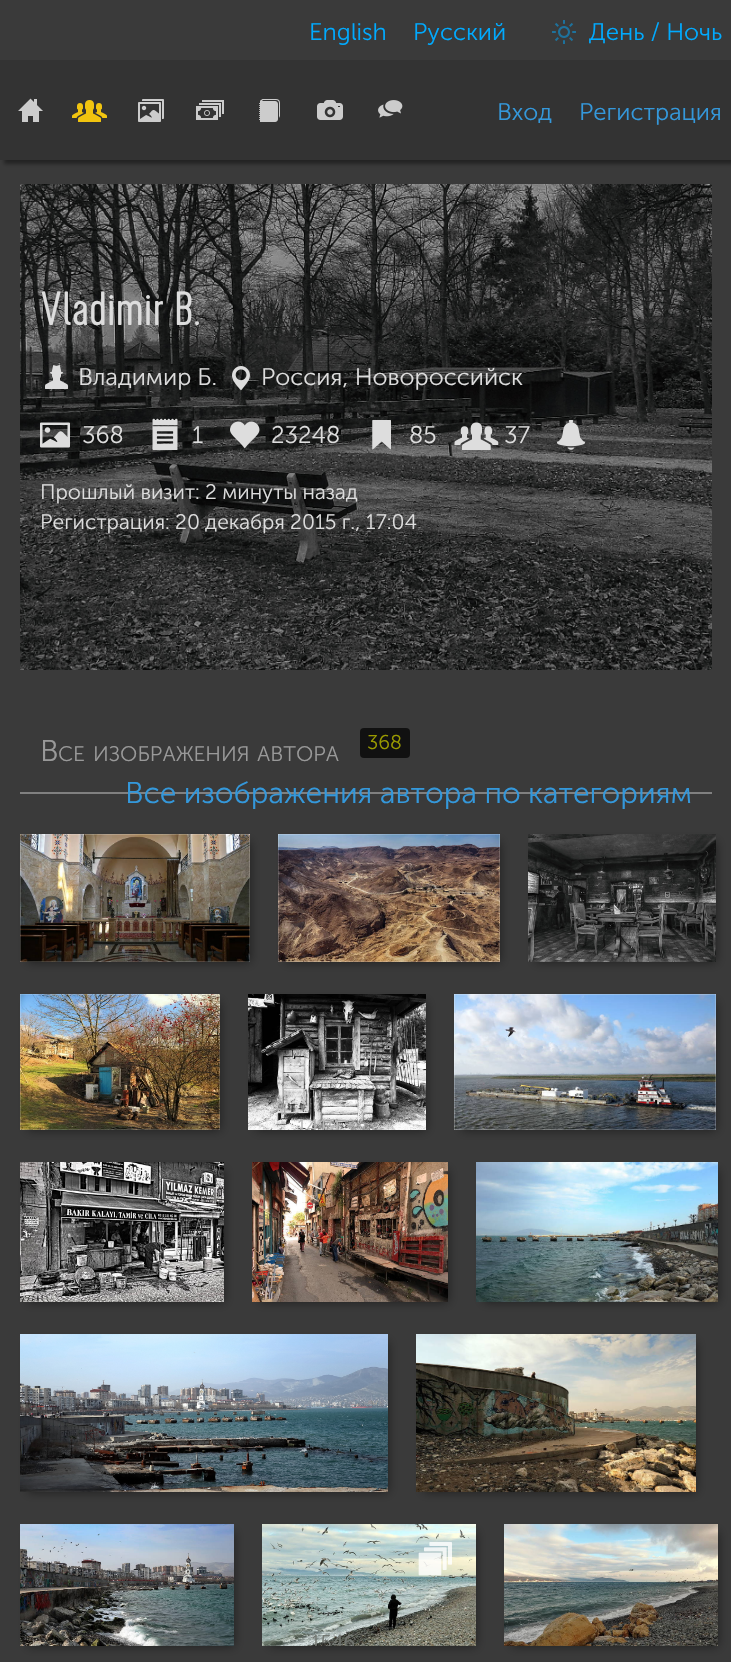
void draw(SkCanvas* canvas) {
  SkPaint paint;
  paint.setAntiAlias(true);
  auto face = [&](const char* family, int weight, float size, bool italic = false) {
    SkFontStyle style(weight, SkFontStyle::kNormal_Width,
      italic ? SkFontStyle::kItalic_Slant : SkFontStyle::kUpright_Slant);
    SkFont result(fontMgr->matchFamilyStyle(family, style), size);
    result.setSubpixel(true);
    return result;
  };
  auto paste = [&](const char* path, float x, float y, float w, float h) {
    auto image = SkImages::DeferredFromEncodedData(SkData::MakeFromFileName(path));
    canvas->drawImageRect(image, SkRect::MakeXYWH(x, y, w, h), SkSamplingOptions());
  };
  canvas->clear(0xff3a3a3a);
  paint.setColor(0xff222222);
  paint.setMaskFilter(SkMaskFilter::MakeBlur(kNormal_SkBlurStyle, 2));
  canvas->drawRect(SkRect::MakeXYWH(4, 64, 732, 100), paint);
  paint.setMaskFilter(nullptr);
  paint.setColor(0xff333333);
  canvas->drawRect(SkRect::MakeXYWH(0, 60, 731, 100), paint);
  paste("img/1.png", 552, 20, 24, 24);
  paste("img/2.png", 18, 98, 25, 24);
  paste("img/3.png", 72, 100, 35, 22);
  paste("img/4.png", 138, 99, 26, 23);
  paste("img/5.png", 196, 100, 28, 20);
  paste("img/6.png", 259, 99, 21, 23);
  paste("img/7.png", 317, 100, 26, 20);
  paste("img/8.png", 378, 100, 25, 18);
  paste("img/32.png", 20, 184, 692, 486);
  paste("img/9.png", 45, 365, 23, 24);
  paste("img/10.png", 232, 366, 18, 25);
  paste("img/11.png", 40, 422, 30, 26);
  paste("img/12.png", 152, 418, 26, 32);
  paste("img/13.png", 230, 421, 30, 28);
  paste("img/14.png", 372, 420, 19, 30);
  paste("img/15.png", 454, 422, 45, 28);
  paste("img/16.png", 557, 420, 28, 30);
  paint.setColor(0xff808080);
  canvas->drawRect(SkRect::MakeXYWH(20, 792, 692, 2), paint);
  paint.setColor(0xff111111);
  canvas->drawRoundRect(SkRect::MakeXYWH(360, 728, 50, 30), 4, 4, paint);
  paint.setColor(0x80000000);
  paint.setMaskFilter(SkMaskFilter::MakeBlur(kNormal_SkBlurStyle, 5));
  canvas->drawRect(SkRect::MakeXYWH(28, 842, 222, 120), paint);
  paint.setMaskFilter(nullptr);
  paste("img/17.png", 20, 834, 230, 128);
  paint.setMaskFilter(SkMaskFilter::MakeBlur(kNormal_SkBlurStyle, 5));
  canvas->drawRect(SkRect::MakeXYWH(286, 842, 214, 120), paint);
  paint.setMaskFilter(nullptr);
  paste("img/18.png", 278, 834, 222, 128);
  paint.setMaskFilter(SkMaskFilter::MakeBlur(kNormal_SkBlurStyle, 5));
  canvas->drawRect(SkRect::MakeXYWH(536, 842, 180, 120), paint);
  paint.setMaskFilter(nullptr);
  paste("img/19.png", 528, 834, 188, 128);
  paint.setMaskFilter(SkMaskFilter::MakeBlur(kNormal_SkBlurStyle, 5));
  canvas->drawRect(SkRect::MakeXYWH(28, 1002, 192, 128), paint);
  paint.setMaskFilter(nullptr);
  paste("img/20.png", 20, 994, 200, 136);
  paint.setMaskFilter(SkMaskFilter::MakeBlur(kNormal_SkBlurStyle, 5));
  canvas->drawRect(SkRect::MakeXYWH(256, 1002, 170, 128), paint);
  paint.setMaskFilter(nullptr);
  paste("img/21.png", 248, 994, 178, 136);
  paint.setMaskFilter(SkMaskFilter::MakeBlur(kNormal_SkBlurStyle, 5));
  canvas->drawRect(SkRect::MakeXYWH(462, 1002, 254, 128), paint);
  paint.setMaskFilter(nullptr);
  paste("img/22.png", 454, 994, 262, 136);
  paint.setMaskFilter(SkMaskFilter::MakeBlur(kNormal_SkBlurStyle, 5));
  canvas->drawRect(SkRect::MakeXYWH(28, 1170, 196, 132), paint);
  paint.setMaskFilter(nullptr);
  paste("img/23.png", 20, 1162, 204, 140);
  paint.setMaskFilter(SkMaskFilter::MakeBlur(kNormal_SkBlurStyle, 5));
  canvas->drawRect(SkRect::MakeXYWH(260, 1170, 188, 132), paint);
  paint.setMaskFilter(nullptr);
  paste("img/24.png", 252, 1162, 196, 140);
  paint.setMaskFilter(SkMaskFilter::MakeBlur(kNormal_SkBlurStyle, 5));
  canvas->drawRect(SkRect::MakeXYWH(484, 1170, 234, 132), paint);
  paint.setMaskFilter(nullptr);
  paste("img/25.png", 476, 1162, 242, 140);
  paint.setMaskFilter(SkMaskFilter::MakeBlur(kNormal_SkBlurStyle, 5));
  canvas->drawRect(SkRect::MakeXYWH(28, 1342, 360, 150), paint);
  paint.setMaskFilter(nullptr);
  paste("img/26.png", 20, 1334, 368, 158);
  paint.setMaskFilter(SkMaskFilter::MakeBlur(kNormal_SkBlurStyle, 5));
  canvas->drawRect(SkRect::MakeXYWH(424, 1342, 272, 150), paint);
  paint.setMaskFilter(nullptr);
  paste("img/27.png", 416, 1334, 280, 158);
  paint.setMaskFilter(SkMaskFilter::MakeBlur(kNormal_SkBlurStyle, 5));
  canvas->drawRect(SkRect::MakeXYWH(28, 1532, 206, 114), paint);
  paint.setMaskFilter(nullptr);
  paste("img/28.png", 20, 1524, 214, 122);
  paint.setMaskFilter(SkMaskFilter::MakeBlur(kNormal_SkBlurStyle, 5));
  canvas->drawRect(SkRect::MakeXYWH(270, 1532, 206, 114), paint);
  paint.setMaskFilter(nullptr);
  paste("img/29.png", 262, 1524, 214, 122);
  paste("img/30.png", 418, 1542, 34, 34);
  paint.setMaskFilter(SkMaskFilter::MakeBlur(kNormal_SkBlurStyle, 5));
  canvas->drawRect(SkRect::MakeXYWH(512, 1532, 206, 114), paint);
  paint.setMaskFilter(nullptr);
  paste("img/31.png", 504, 1524, 214, 122);
  auto f0 = face("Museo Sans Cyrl", 300, 24);
  paint.setColor(0xff00aaff);
  {
    const struct { const char* s; float x, y; } items[] = {
      {"English", 309, 40},
      {"Русский", 413, 40},
      {"День / Ночь", 589, 40},
    };
    for (auto [s, x, y] : items) {
      canvas->drawString(s, x, y, f0, paint);
    }
  }
  paint.setColor(0xff3498db);
  canvas->drawString("Вход", 497, 120, f0, paint);
  canvas->drawString("Регистрация", 579, 120, f0, paint);
  auto f1 = face("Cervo", 300, 48);
  paint.setColor(0xffdddddd);
  canvas->drawString("Vladimir B.", 40, 325, f1, paint);
  {
    const struct { const char* s; float x, y; } items[] = {
      {"Владимир Б.", 78, 385},
      {"Россия, Новороссийск", 261, 385},
      {"368", 82, 443},
      {"1", 192, 443},
      {"23248", 271, 443},
      {"85", 409, 443},
      {"37", 504, 443},
    };
    for (auto [s, x, y] : items) {
      canvas->drawString(s, x, y, f0, paint);
    }
  }
  auto f2 = face("Museo Sans Cyrl", 300, 21);
  canvas->drawString("Прошлый визит: 2 минуты назад", 40, 499, f2, paint);
  canvas->drawString("Регистрация: 20 декабря 2015 г., 17:04", 40, 529, f2, paint);
  auto f3 = face("Museo Sans Cyrl", 300, 30);
  paint.setColor(0xff999999);
  canvas->drawString("В", 40, 761, f3, paint);
  {
    const struct { const char* s; float x, y; } items[] = {
      {"СЕ", 58, 761},
      {"ИЗОБРАЖЕНИЯ", 93, 761},
      {"АВТОРА", 257, 761},
    };
    for (auto [s, x, y] : items) {
      canvas->drawString(s, x, y, f2, paint);
    }
  }
  auto f4 = face("Museo Sans Cyrl", 300, 20);
  paint.setColor(0xff999900);
  canvas->drawString("368", 367, 749, f4, paint);
  paint.setColor(0xff3498db);
  canvas->drawString("Все изображения автора по категориям", 125, 803, f3, paint);
  canvas->save();
  canvas->clipRect(SkRect::MakeXYWH(248, 994, 178, 136));
  paint.setColor(0xffb7b7b7);
  canvas->drawString("1419", 297, 1133, f4, paint);
  canvas->restore();
  canvas->save();
  canvas->clipRect(SkRect::MakeXYWH(262, 1524, 214, 122));
  paint.setColor(0xff737772);
  canvas->drawString("1546", 311, 1649, f4, paint);
  canvas->restore();
}
